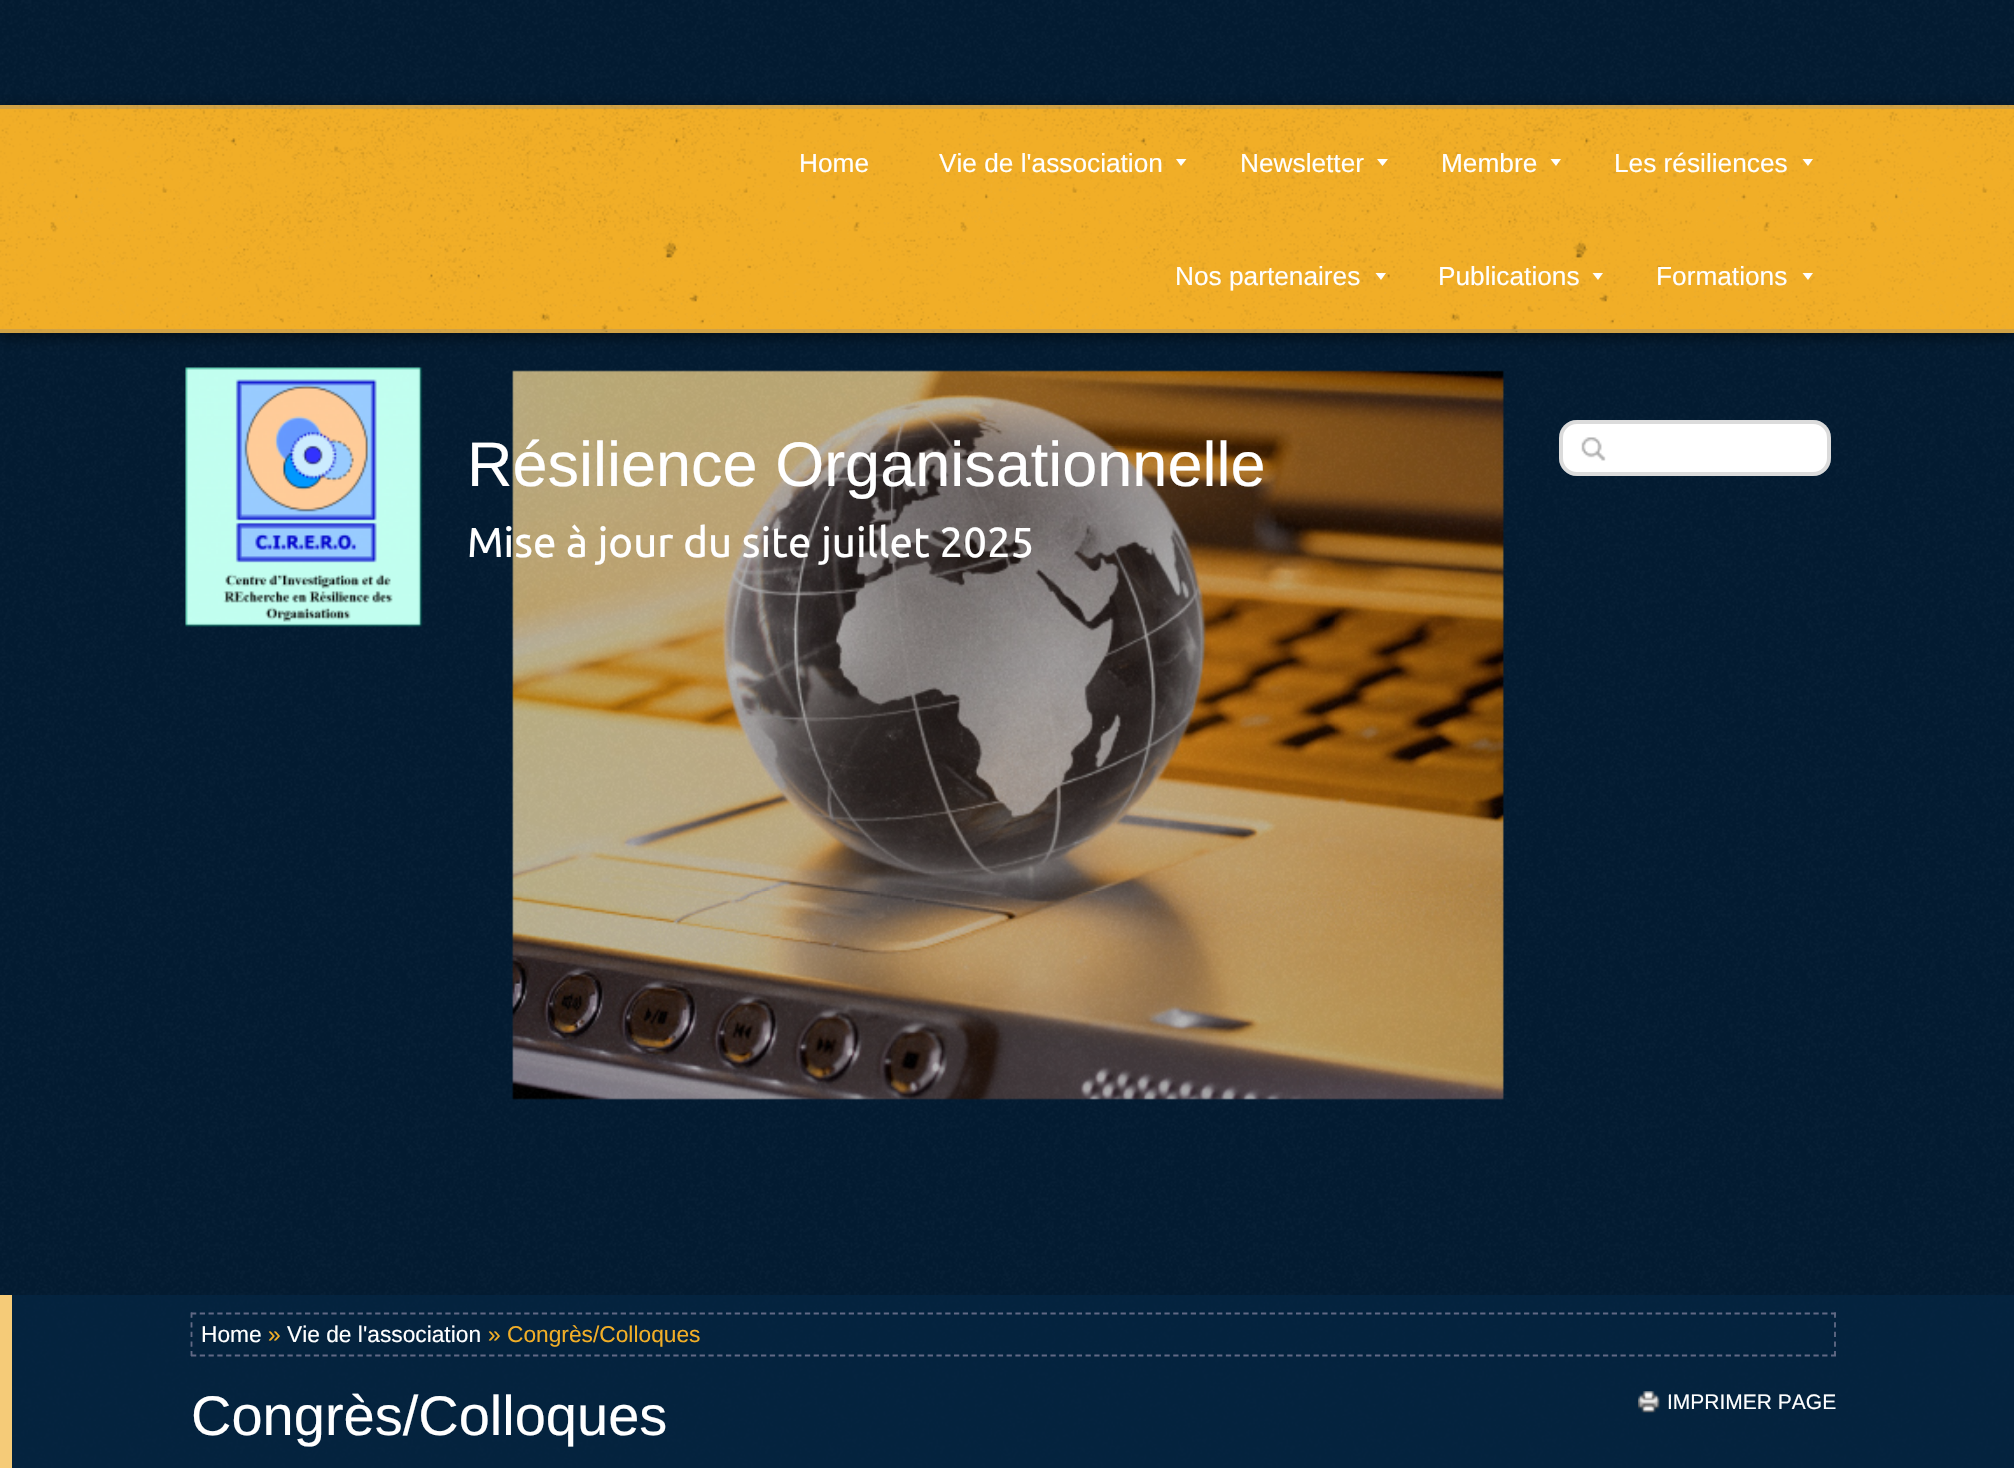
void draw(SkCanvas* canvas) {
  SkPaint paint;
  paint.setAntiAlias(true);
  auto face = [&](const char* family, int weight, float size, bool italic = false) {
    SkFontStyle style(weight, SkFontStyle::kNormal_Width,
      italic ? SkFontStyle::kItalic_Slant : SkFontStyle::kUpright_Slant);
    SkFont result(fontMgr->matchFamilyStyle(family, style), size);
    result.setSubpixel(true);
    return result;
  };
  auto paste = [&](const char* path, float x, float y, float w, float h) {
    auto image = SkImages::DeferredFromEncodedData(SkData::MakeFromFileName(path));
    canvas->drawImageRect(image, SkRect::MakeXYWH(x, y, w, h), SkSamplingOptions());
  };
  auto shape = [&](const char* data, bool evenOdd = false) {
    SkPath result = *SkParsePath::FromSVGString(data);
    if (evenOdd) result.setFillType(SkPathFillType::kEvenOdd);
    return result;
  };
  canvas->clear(0xff042441);
  paste("img/1.png", 512, 370, 992, 730);
  paste("img/2.png", 0, 0, 2014, 1468);
  paint.setColor(0x99000000);
  paint.setMaskFilter(SkMaskFilter::MakeBlur(kNormal_SkBlurStyle, 7));
  canvas->drawRect(SkRect::MakeXYWH(0, 109, 2014, 227), paint);
  paint.setMaskFilter(nullptr);
  paint.setColor(0xfff1ae27);
  canvas->drawRect(SkRect::MakeXYWH(0, 105, 2014, 228), paint);
  paste("img/3.png", 0, 105, 2014, 228);
  paint.setColor(0x4d888888);
  canvas->drawRect(SkRect::MakeXYWH(0, 105, 2014, 4), paint);
  canvas->drawRect(SkRect::MakeXYWH(0, 329, 2014, 4), paint);
  paint.setColor(0xffffffff);
  canvas->drawPath(shape("M1176 159H1186.5L1181 166Z"), paint);
  canvas->drawPath(shape("M1377 159H1388L1382.5 166Z"), paint);
  canvas->drawPath(shape("M1550.5 159H1561L1556 166Z"), paint);
  canvas->drawPath(shape("M1802.5 159H1813L1808 166Z"), paint);
  canvas->drawPath(shape("M1375.5 273H1386L1381 280Z"), paint);
  canvas->drawPath(shape("M1592.5 273H1603L1598 280Z"), paint);
  canvas->drawPath(shape("M1802.5 273H1813L1808 280Z"), paint);
  paste("img/4.png", 185, 367, 238, 260);
  canvas->drawRoundRect(SkRect::MakeXYWH(1559, 420, 272, 56), 18, 18, paint);
  paint.setStroke(true);
  paint.setStrokeWidth(4);
  paint.setColor(0x4d888888);
  canvas->drawRoundRect(SkRect::MakeXYWH(1561, 422, 268, 52), 16, 16, paint);
  paste("img/5.png", 1581, 437, 25, 24);
  paint.setStroke(false);
  paint.setColor(0xfff5cb78);
  canvas->drawRect(SkRect::MakeXYWH(0, 1295, 12, 173), paint);
  paint.setColor(0xcc042441);
  canvas->drawRect(SkRect::MakeXYWH(12, 1295, 2002, 173), paint);
  paint.setStroke(true);
  paint.setStrokeWidth(1.8f);
  paint.setColor(0xff616985);
  paint.setPathEffect(SkDashPathEffect::Make({{5.25f, 3.52f}}, 0));
  canvas->drawPath(shape("M191 1313.5H1836"), paint);
  paint.setPathEffect(nullptr);
  paint.setPathEffect(SkDashPathEffect::Make({{5.25f, 4.38f}}, 0));
  canvas->drawPath(shape("M1835 1312.5V1356"), paint);
  paint.setPathEffect(nullptr);
  paint.setPathEffect(SkDashPathEffect::Make({{5.25f, 3.52f}}, 0));
  canvas->drawPath(shape("M191 1355.5H1836"), paint);
  paint.setPathEffect(nullptr);
  paint.setPathEffect(SkDashPathEffect::Make({{5.25f, 4.38f}}, 0));
  canvas->drawPath(shape("M191.5 1312.5V1356"), paint);
  paint.setPathEffect(nullptr);
  paste("img/6.png", 1638, 1391, 22, 22);
  auto f0 = face("Liberation Sans", 400, 26.25f);
  paint.setStroke(false);
  paint.setColor(0xffffffff);
  {
    const struct { const char* s; float x, y; } items[] = {
      {"Home", 799, 172},
      {"Vie de l'association", 939, 172},
      {"Newsletter", 1240, 172},
      {"Membre", 1441, 172},
      {"Les résiliences", 1614, 172},
      {"Nos partenaires", 1175, 285},
      {"Publications", 1438, 285},
      {"Formations", 1656, 285},
    };
    for (auto [s, x, y] : items) {
      canvas->drawString(s, x, y, f0, paint);
    }
  }
  auto f1 = face("Liberation Sans", 400, 63);
  canvas->drawString("Résilience Organisationnelle", 467, 486, f1, paint);
  auto f2 = face("Ubuntu", 400, 42);
  canvas->drawString("Mise à jour du site juillet 2025", 467, 557, f2, paint);
  auto f3 = face("Liberation Sans", 400, 22.75f);
  canvas->drawString("Home", 201, 1342, f3, paint);
  paint.setColor(0xfff1ae27);
  canvas->drawString("»", 268, 1342, f3, paint);
  paint.setColor(0xffffffff);
  canvas->drawString("Vie de l'association", 287, 1342, f3, paint);
  paint.setColor(0xfff1ae27);
  canvas->drawString("» Congrès/Colloques", 488, 1342, f3, paint);
  auto f4 = face("Liberation Sans", 400, 56);
  paint.setColor(0xffffffff);
  canvas->drawString("Congrès/Colloques", 191, 1435, f4, paint);
  auto f5 = face("Liberation Sans", 400, 21);
  canvas->drawString("IMPRIMER PAGE", 1667, 1409, f5, paint);
}
